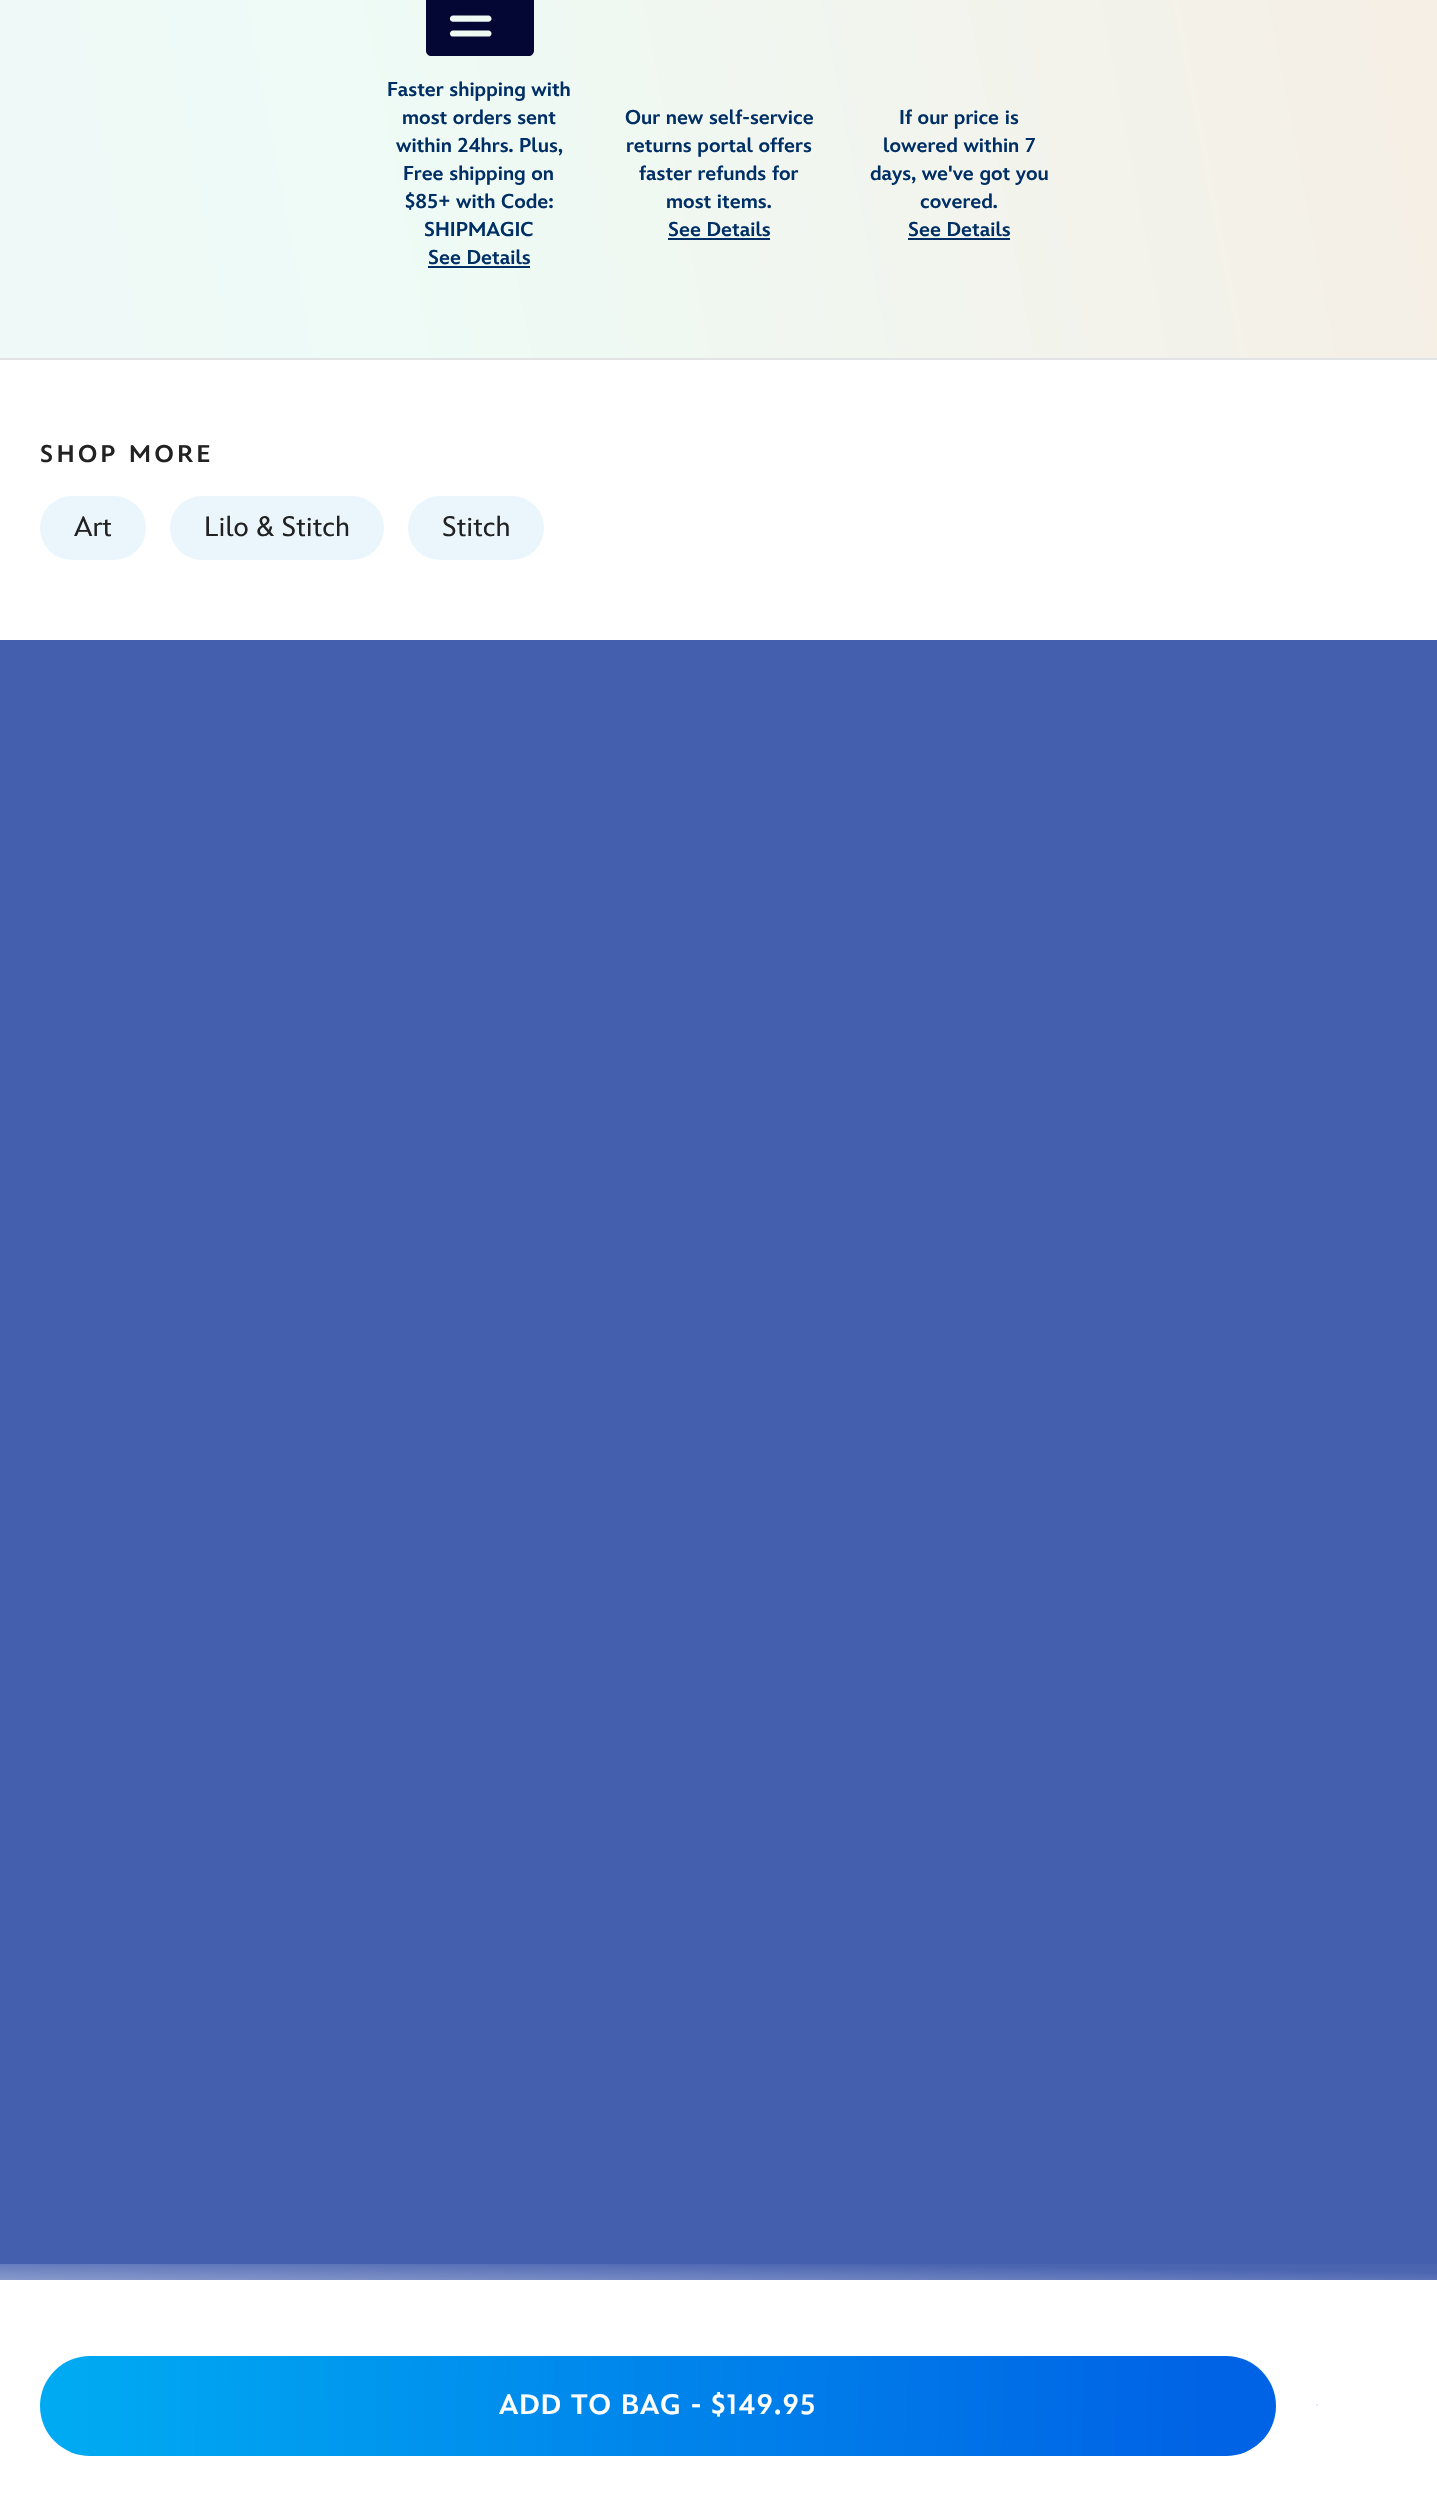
void draw(SkCanvas* canvas) {
  SkPaint paint;
  paint.setAntiAlias(true);
  auto face = [&](const char* family, int weight, float size, bool italic = false) {
    SkFontStyle style(weight, SkFontStyle::kNormal_Width,
      italic ? SkFontStyle::kItalic_Slant : SkFontStyle::kUpright_Slant);
    SkFont result(fontMgr->matchFamilyStyle(family, style), size);
    result.setSubpixel(true);
    return result;
  };
  auto writeSpaced = [&](const char* s, float x, float y, const SkFont& font, const SkPaint& ink, float letter, float word) {
    std::vector<SkGlyphID> glyphs(font.countText(s, strlen(s), SkTextEncoding::kUTF8));
    std::vector<float> xs(glyphs.size());
    font.textToGlyphs(s, strlen(s), SkTextEncoding::kUTF8, glyphs);
    font.getXPos(glyphs, xs, x);
    float extra = 0;
    for (size_t i = 0; i < glyphs.size(); i++) {
      xs[i] += extra;
      extra += letter + word * (glyphs[i] == font.unicharToGlyph(' '));
    }
    canvas->drawTextBlob(SkTextBlob::MakeFromPosHGlyphs(glyphs, xs, y, font), 0, 0, ink);
  };
  auto paste = [&](const char* path, float x, float y, float w, float h) {
    auto image = SkImages::DeferredFromEncodedData(SkData::MakeFromFileName(path));
    canvas->drawImageRect(image, SkRect::MakeXYWH(x, y, w, h), SkSamplingOptions());
  };
  canvas->clear(0xffffffff);
  {
    const SkColor colors[] = {0xffeff9f8, 0xffeefbf6, 0xfff5efe6};
    const float stops[] = {0.04f, 0.26f, 0.96f};
    const SkPoint ends[] = {{-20, 252}, {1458, -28}};
    paint.setShader(SkGradientShader::MakeLinear(ends, colors, stops, 3, SkTileMode::kClamp));
    paint.setAlpha(255);
  }
  canvas->drawRect(SkRect::MakeXYWH(0, 0, 1437, 358), paint);
  paste("img/1.png", 426, 0, 108, 56);
  paint.setShader(nullptr);
  {
    const struct { float x, y, w, h; SkColor color; } items[] = {
      {428, 266, 102, 2, 0xff002f65},
      {668, 238, 102, 2, 0xff002f65},
      {908, 238, 102, 2, 0xff002f65},
      {0, 358, 1437, 2, 0xffe1e3e5},
    };
    for (auto [x, y, w, h, color] : items) {
      paint.setColor(color);
      canvas->drawRect(SkRect::MakeXYWH(x, y, w, h), paint);
    }
  }
  paint.setColor(0xffebf6fc);
  canvas->drawRoundRect(SkRect::MakeXYWH(40, 496, 106, 64), 32, 32, paint);
  canvas->drawRoundRect(SkRect::MakeXYWH(170, 496, 214, 64), 32, 32, paint);
  canvas->drawRoundRect(SkRect::MakeXYWH(408, 496, 136, 64), 32, 32, paint);
  paint.setColor(0xff445fae);
  canvas->drawRect(SkRect::MakeXYWH(0, 640, 1437, 1640), paint);
  {
    const SkColor colors[] = {0x00ffffff, 0x0affffff, 0xebffffff, 0xffffffff};
    const float stops[] = {0, 0.12f, 0.4f, 0.99f};
    const SkPoint ends[] = {{721, 2229}, {717, 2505}};
    paint.setShader(SkGradientShader::MakeLinear(ends, colors, stops, 4, SkTileMode::kClamp));
    paint.setAlpha(255);
  }
  canvas->drawRect(SkRect::MakeXYWH(0, 2264, 1437, 16), paint);
  {
    const SkColor colors[] = {0xff0063e5, 0xff00aaf2};
    const float stops[] = {0.06f, 0.98f};
    const SkPoint ends[] = {{1277, 2421}, {39, 2391}};
    paint.setShader(SkGradientShader::MakeLinear(ends, colors, stops, 2, SkTileMode::kClamp));
    paint.setAlpha(255);
  }
  canvas->drawRoundRect(SkRect::MakeXYWH(40, 2356, 1236, 100), 50, 50, paint);
  paste("img/2.png", 1316, 2404, 2, 2);
  auto f0 = face("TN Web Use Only", 600, 20);
  paint.setShader(nullptr);
  paint.setColor(0xff002f65);
  {
    const struct { const char* s; float x, y; } items[] = {
      {"Faster shipping with", 387, 96},
      {"most orders sent", 402, 124},
      {"within 24hrs. Plus,", 396, 152},
      {"Free shipping on", 403, 180},
      {"$85+ with Code:", 405, 208},
      {"SHIPMAGIC", 424, 236},
      {"See Details", 428, 264},
      {"Our new self-service", 625, 124},
      {"returns portal offers", 626, 152},
      {"faster refunds for", 639, 180},
      {"most items.", 666, 208},
      {"See Details", 668, 236},
      {"If our price is", 899, 124},
      {"lowered within 7", 883, 152},
      {"days, we've got you", 870, 180},
      {"covered.", 920, 208},
      {"See Details", 908, 236},
    };
    for (auto [s, x, y] : items) {
      canvas->drawString(s, x, y, f0, paint);
    }
  }
  auto f1 = face("TN Web Use Only", 600, 24);
  paint.setColor(0xff222222);
  writeSpaced("SHOP MORE", 40, 462, f1, paint, 3.5f, 0);
  auto f2 = face("TN Web Use Only", 400, 28);
  {
    const struct { const char* s; float x, y; } items[] = {
      {"Art", 74, 536},
      {"Lilo & Stitch", 204, 536},
      {"Stitch", 442, 536},
    };
    for (auto [s, x, y] : items) {
      canvas->drawString(s, x, y, f2, paint);
    }
  }
  auto f3 = face("TN Web Use Only", 600, 28);
  paint.setColor(0xffffffff);
  writeSpaced("ADD TO BAG - $149.95", 499, 2414, f3, paint, 1.1f, 0);
}
